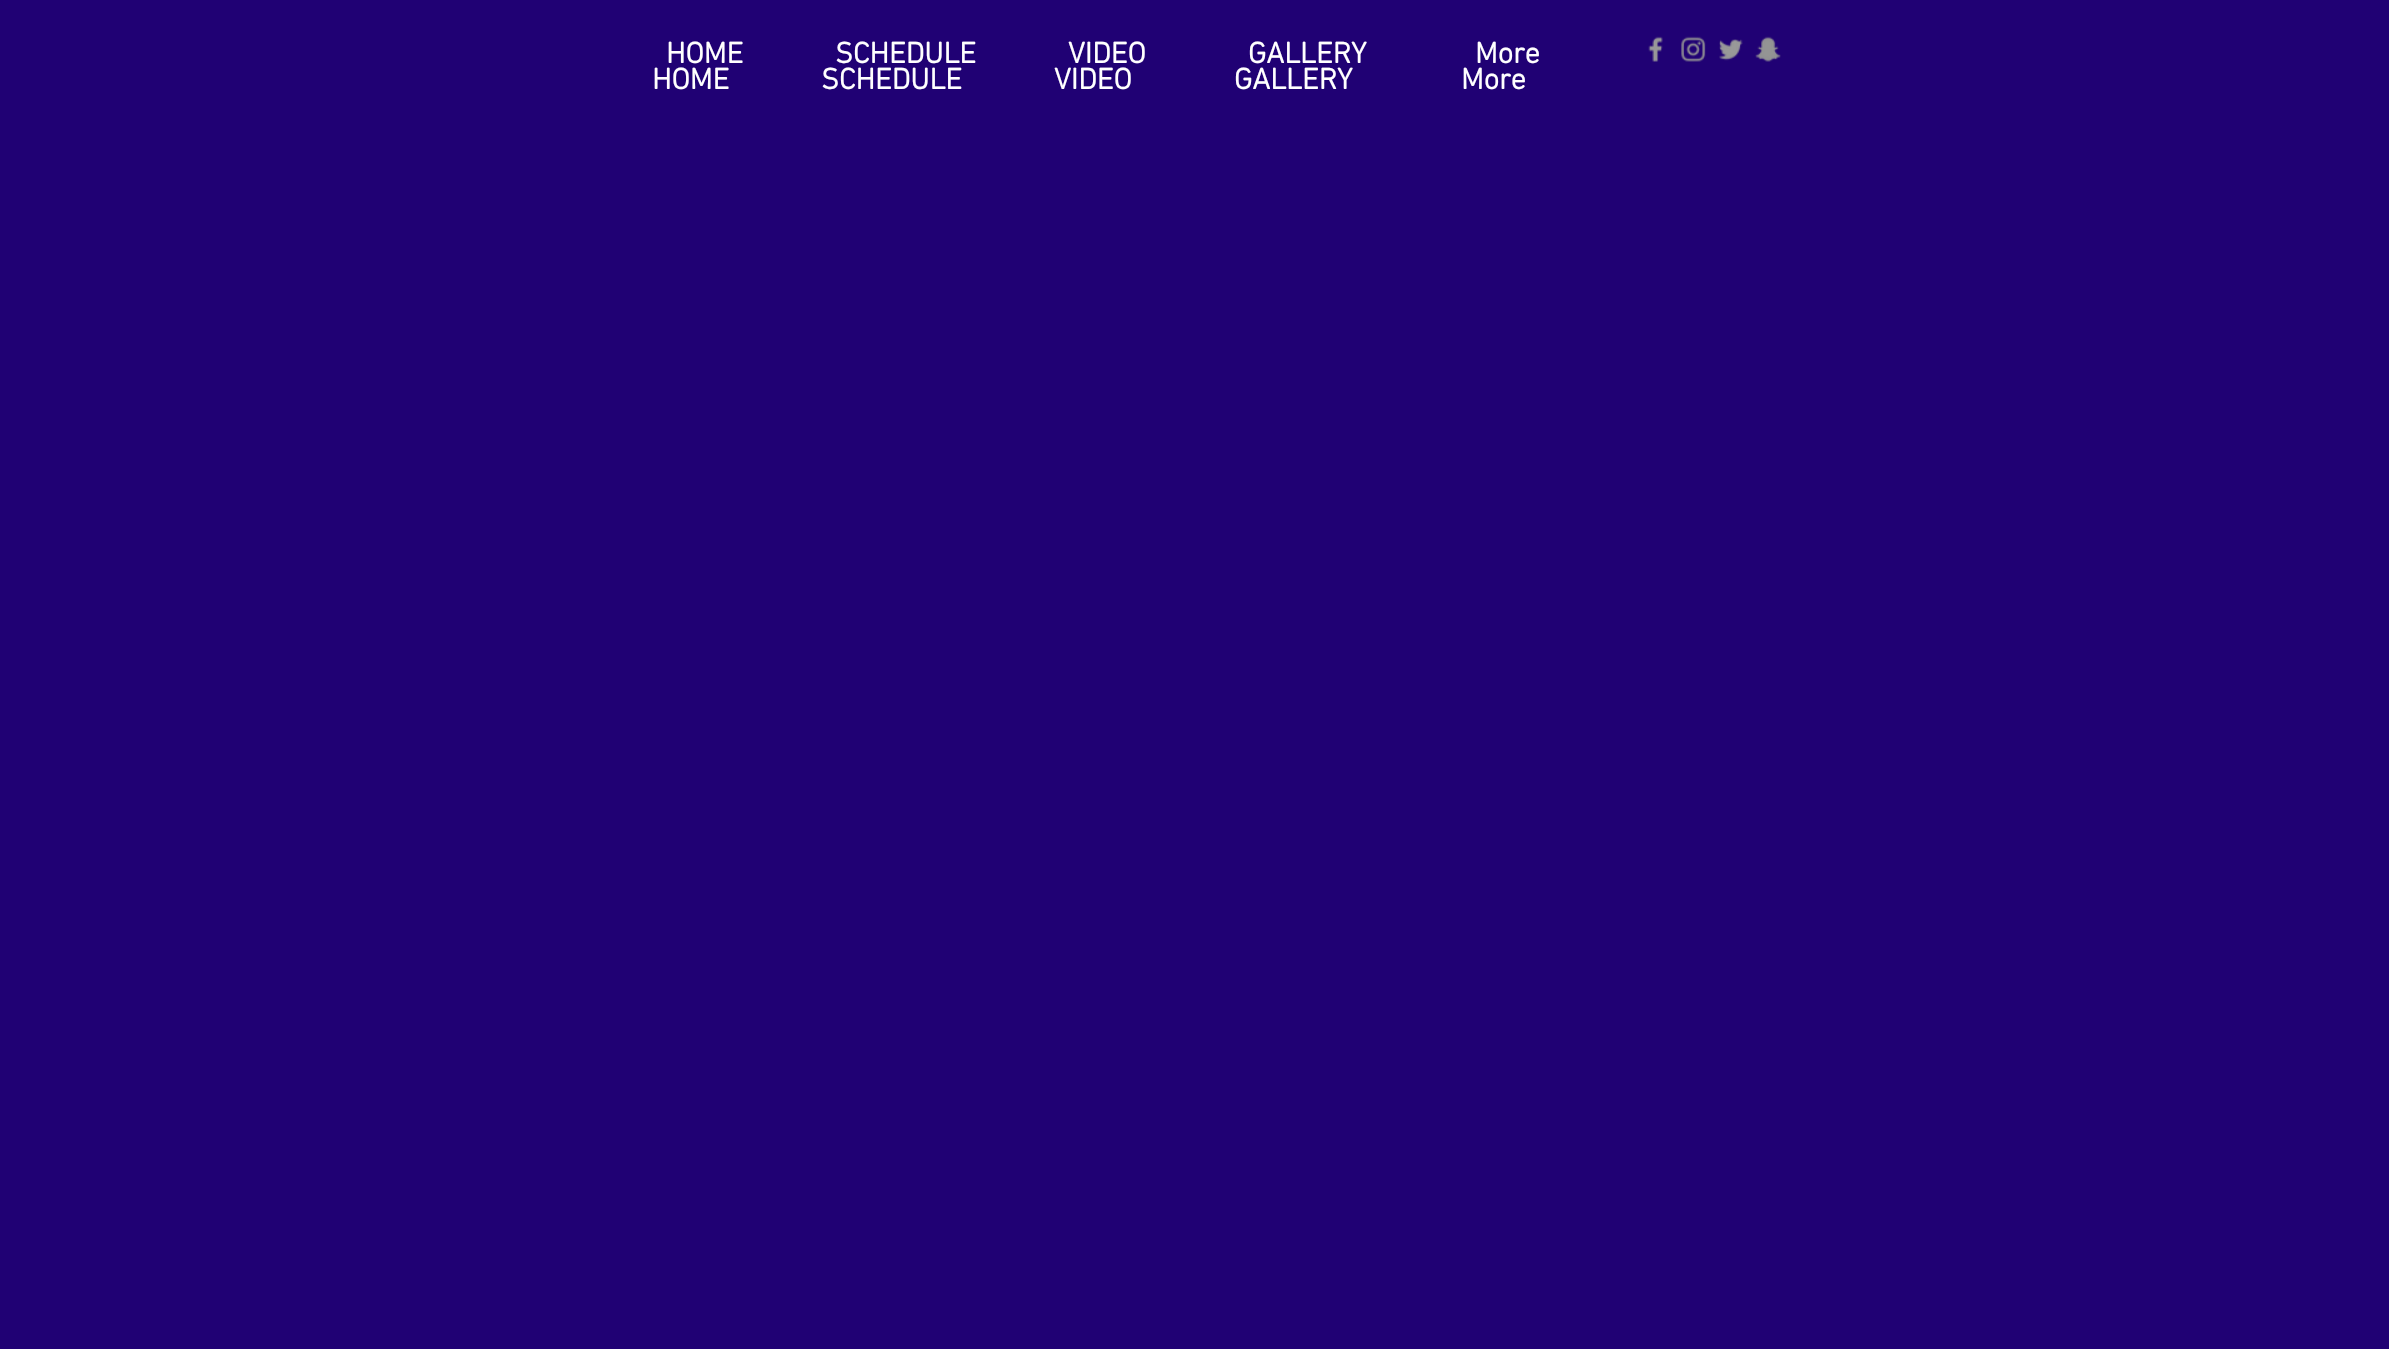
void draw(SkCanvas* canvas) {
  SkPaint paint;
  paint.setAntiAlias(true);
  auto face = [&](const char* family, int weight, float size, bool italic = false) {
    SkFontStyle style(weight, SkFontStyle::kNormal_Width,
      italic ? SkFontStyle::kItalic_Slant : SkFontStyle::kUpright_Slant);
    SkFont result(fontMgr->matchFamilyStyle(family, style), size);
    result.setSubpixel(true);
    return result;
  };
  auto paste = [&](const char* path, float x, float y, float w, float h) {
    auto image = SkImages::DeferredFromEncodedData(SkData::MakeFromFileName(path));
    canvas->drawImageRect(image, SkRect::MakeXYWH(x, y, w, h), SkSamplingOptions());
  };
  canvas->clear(0xff200174);
  paste("img/1.png", 1648, 36, 15, 26);
  paste("img/2.png", 1681, 36, 25, 26);
  paste("img/3.png", 1719, 39, 24, 22);
  paste("img/4.png", 1755, 36, 26, 26);
  auto f0 = face("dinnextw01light", 700, 30);
  paint.setColor(0xffffffff);
  {
    const struct { const char* s; float x, y; } items[] = {
      {"HOME", 666, 63},
      {"SCHEDULE", 835, 63},
      {"VIDEO", 1068, 63},
      {"GALLERY", 1248, 63},
      {"More", 1475, 63},
      {"HOME", 652, 89},
      {"SCHEDULE", 821, 89},
      {"VIDEO", 1054, 89},
      {"GALLERY", 1234, 89},
      {"More", 1461, 89},
    };
    for (auto [s, x, y] : items) {
      canvas->drawString(s, x, y, f0, paint);
    }
  }
}
